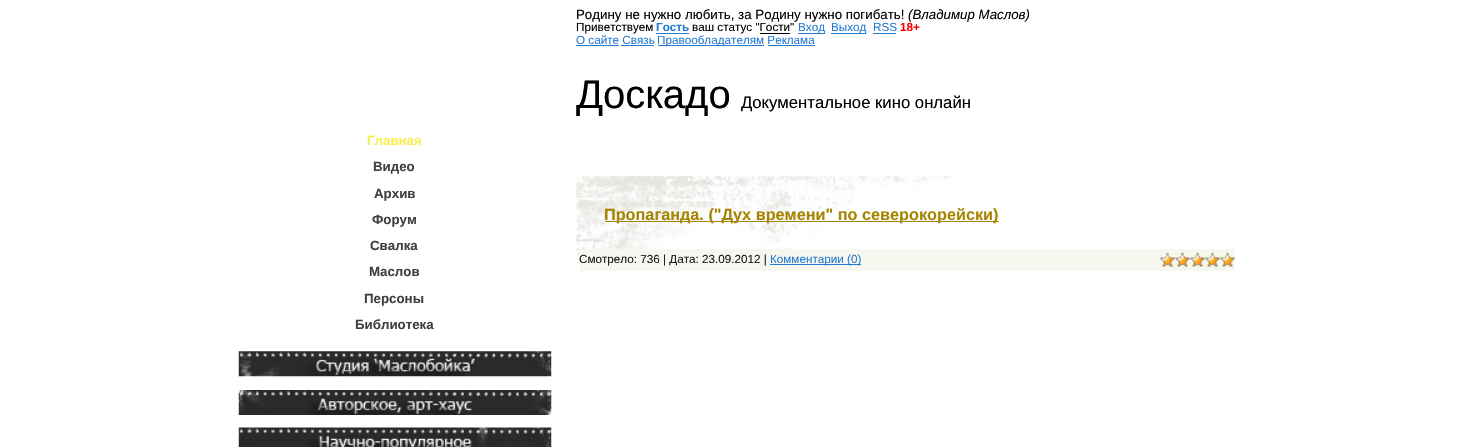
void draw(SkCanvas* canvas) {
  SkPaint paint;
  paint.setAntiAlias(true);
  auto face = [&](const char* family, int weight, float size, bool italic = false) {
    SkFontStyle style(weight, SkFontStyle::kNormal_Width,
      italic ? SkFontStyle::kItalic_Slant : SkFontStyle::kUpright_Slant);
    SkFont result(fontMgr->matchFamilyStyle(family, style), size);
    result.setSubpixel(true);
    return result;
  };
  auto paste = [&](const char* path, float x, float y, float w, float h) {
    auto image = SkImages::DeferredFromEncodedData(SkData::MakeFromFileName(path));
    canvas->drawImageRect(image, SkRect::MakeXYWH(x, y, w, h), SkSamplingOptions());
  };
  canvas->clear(0xffffffff);
  paste("img/1.png", 238, 351, 314, 26);
  paste("img/2.png", 238, 390, 314, 25);
  paste("img/3.png", 238, 427, 314, 20);
  {
    const struct { float x, y, w, h; SkColor color; } items[] = {
      {656, 33, 33, 1, 0xff267bd1},
      {798, 33, 27, 1, 0xff267bd1},
      {831, 33, 35, 1, 0xff267bd1},
      {873, 33, 23, 1, 0xff267bd1},
      {760, 33, 30, 1, 0xff000000},
      {576, 45, 43, 1, 0xff267bd1},
      {658, 45, 106, 1, 0xff267bd1},
      {621, 45, 33, 1, 0xff267bd1},
      {768, 45, 47, 1, 0xff267bd1},
    };
    for (auto [x, y, w, h, color] : items) {
      paint.setColor(color);
      canvas->drawRect(SkRect::MakeXYWH(x, y, w, h), paint);
    }
  }
  paste("img/4.png", 576, 176, 377, 90);
  {
    const struct { float x, y, w, h; SkColor color; } items[] = {
      {605, 221, 394, 1, 0xffa58500},
      {580, 249, 655, 22, 0xfff6f7ef},
      {770, 264, 91, 1, 0xff267bd1},
    };
    for (auto [x, y, w, h, color] : items) {
      paint.setColor(color);
      canvas->drawRect(SkRect::MakeXYWH(x, y, w, h), paint);
    }
  }
  paste("img/5.png", 1160, 252, 75, 16);
  paste("img/6.png", 1160, 252, 75, 16);
  auto f0 = face("Liberation Sans", 700, 13.3f);
  paint.setColor(0xfff8ef58);
  canvas->drawString("Главная", 367, 145, f0, paint);
  paint.setColor(0xff404040);
  {
    const struct { const char* s; float x, y; } items[] = {
      {"Видео", 373, 171},
      {"Архив", 374, 198},
      {"Форум", 372, 224},
      {"Свалка", 370, 250},
      {"Маслов", 369, 276},
      {"Персоны", 364, 303},
      {"Библиотека", 355, 329},
    };
    for (auto [s, x, y] : items) {
      canvas->drawString(s, x, y, f0, paint);
    }
  }
  auto f1 = face("Liberation Sans", 400, 13.3f);
  paint.setColor(0xff000000);
  canvas->drawString("Родину не нужно любить, за Родину нужно погибать!", 576, 19, f1, paint);
  auto f2 = face("Liberation Sans", 400, 13.3f, true);
  canvas->drawString("(Владимир Маслов)", 908, 19, f2, paint);
  auto f3 = face("Liberation Sans", 400, 11.7f);
  canvas->drawString("Приветствуем", 576, 31, f3, paint);
  auto f4 = face("Liberation Sans", 700, 11.7f);
  paint.setColor(0xff267bd1);
  canvas->drawString("Гость", 656, 31, f4, paint);
  paint.setColor(0xff000000);
  canvas->drawString("ваш статус \"Гости\"", 692, 31, f3, paint);
  paint.setColor(0xff267bd1);
  {
    const struct { const char* s; float x, y; } items[] = {
      {"Вход", 798, 31},
      {"Выход", 831, 31},
      {"RSS", 873, 31},
    };
    for (auto [s, x, y] : items) {
      canvas->drawString(s, x, y, f3, paint);
    }
  }
  paint.setColor(0xffff0000);
  canvas->drawString("18+", 900, 31, f4, paint);
  paint.setColor(0xff267bd1);
  canvas->drawString("О сайте Связь", 576, 44, f3, paint);
  canvas->drawString("Правообладателям Реклама", 657, 44, f3, paint);
  auto f5 = face("Liberation Sans", 400, 40);
  paint.setColor(0xff000000);
  canvas->drawString("Доскадо", 576, 108, f5, paint);
  auto f6 = face("Liberation Sans", 400, 16.7f);
  canvas->drawString("Документальное кино онлайн", 741, 108, f6, paint);
  auto f7 = face("Liberation Sans", 700, 16.25f);
  paint.setColor(0xffa58500);
  canvas->drawString("Пропаганда. (\"Дух времени\" по северокорейски)", 604, 220, f7, paint);
  paint.setColor(0xff1a1a1a);
  canvas->drawString("Смотрело: 736 | Дата: 23.09.2012 |", 579, 263, f3, paint);
  paint.setColor(0xff267bd1);
  canvas->drawString("Комментарии (0)", 770, 263, f3, paint);
}
